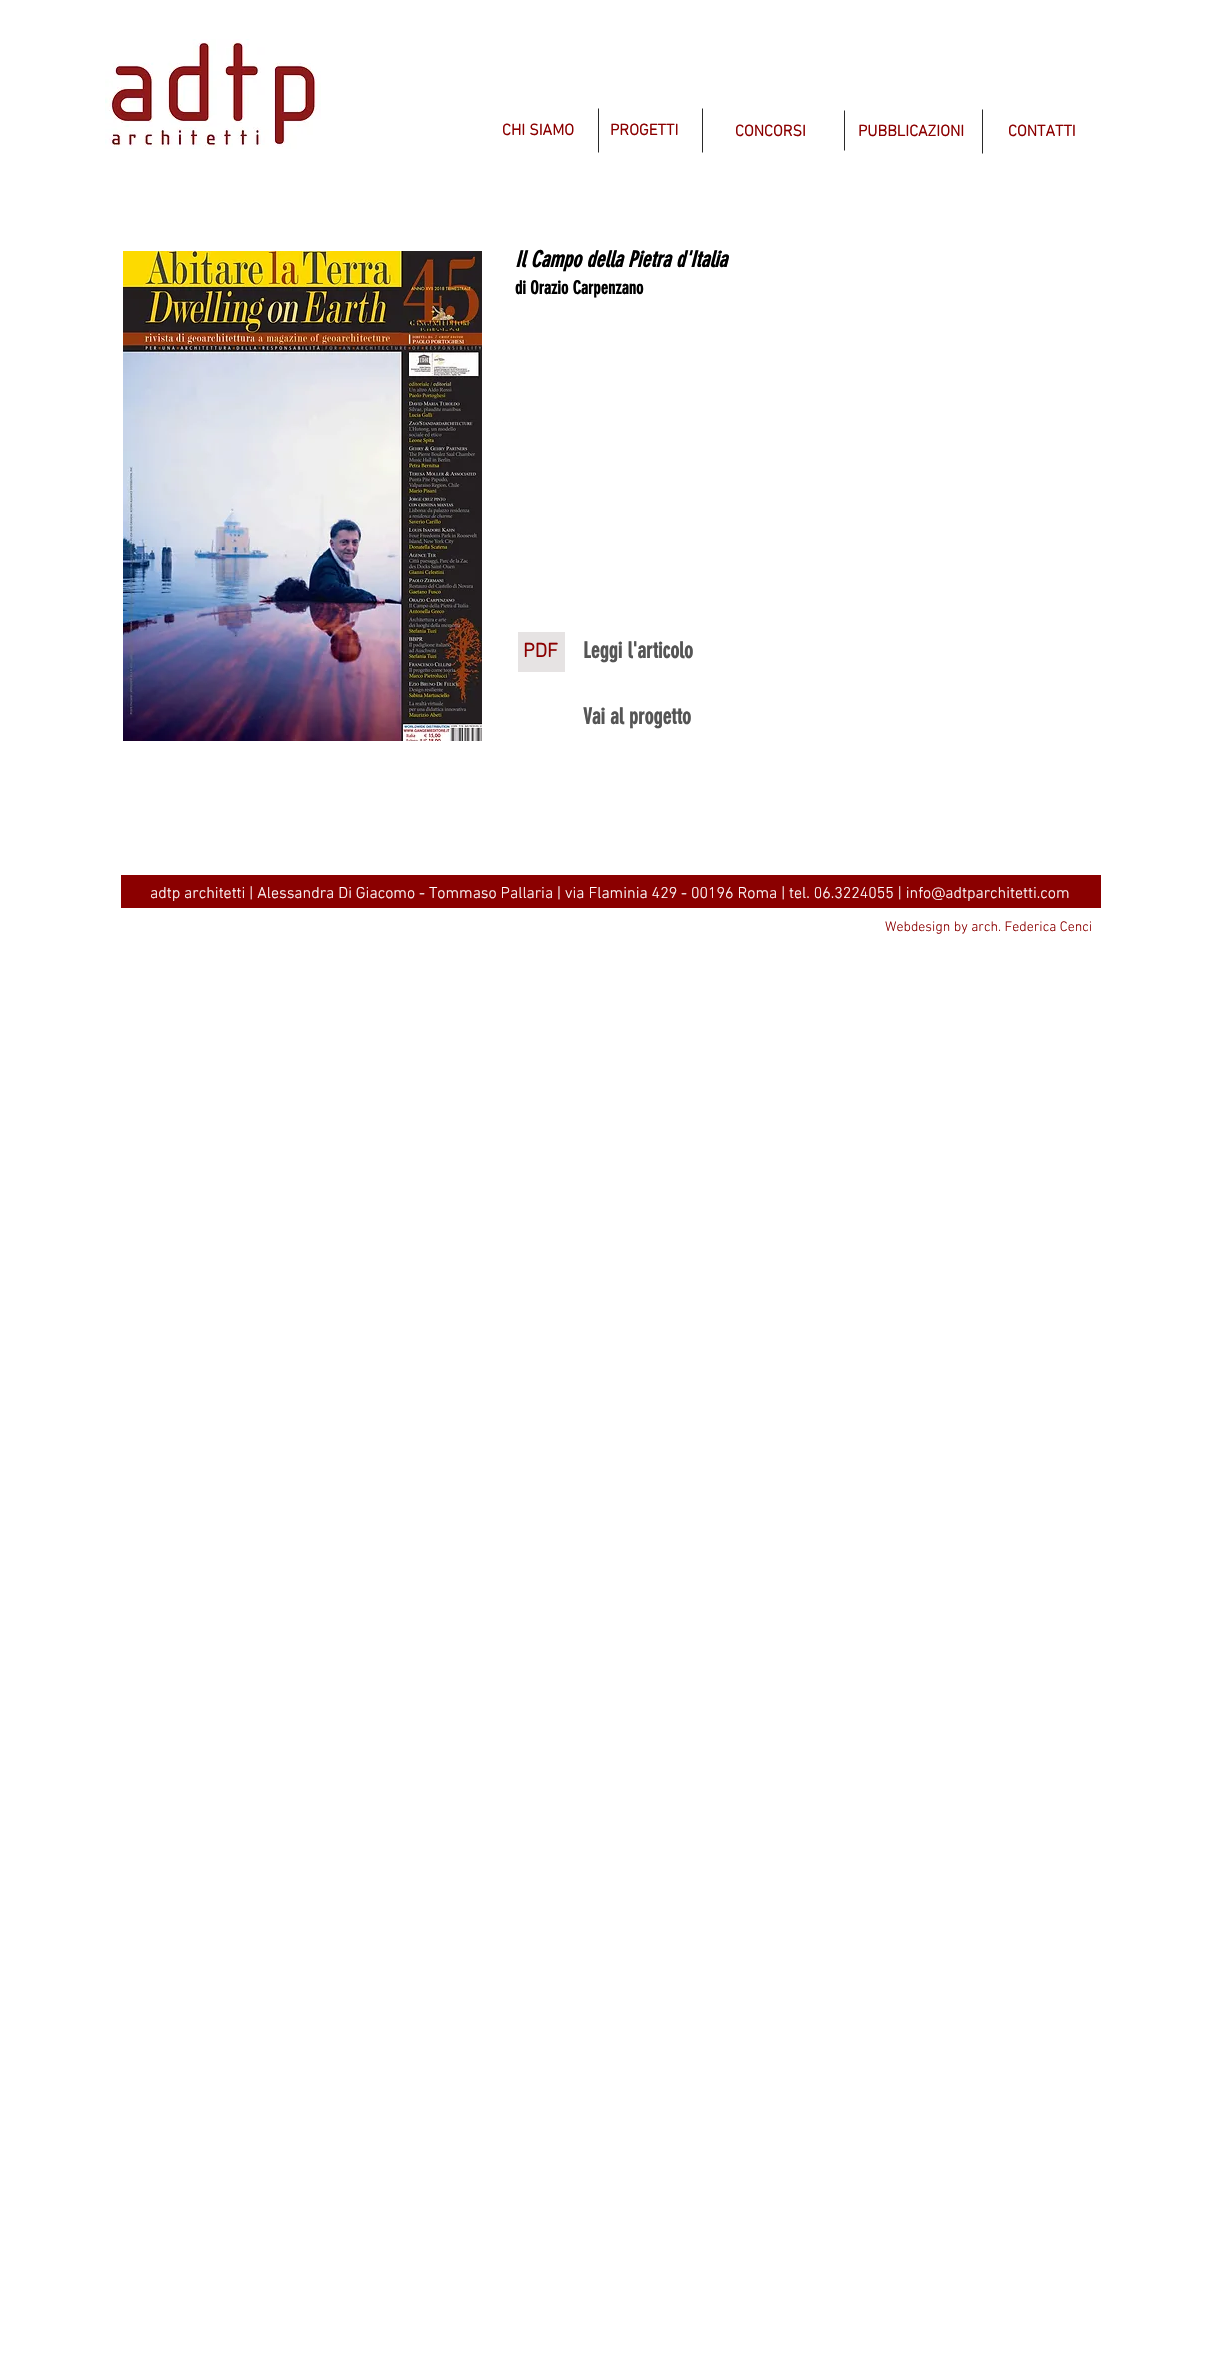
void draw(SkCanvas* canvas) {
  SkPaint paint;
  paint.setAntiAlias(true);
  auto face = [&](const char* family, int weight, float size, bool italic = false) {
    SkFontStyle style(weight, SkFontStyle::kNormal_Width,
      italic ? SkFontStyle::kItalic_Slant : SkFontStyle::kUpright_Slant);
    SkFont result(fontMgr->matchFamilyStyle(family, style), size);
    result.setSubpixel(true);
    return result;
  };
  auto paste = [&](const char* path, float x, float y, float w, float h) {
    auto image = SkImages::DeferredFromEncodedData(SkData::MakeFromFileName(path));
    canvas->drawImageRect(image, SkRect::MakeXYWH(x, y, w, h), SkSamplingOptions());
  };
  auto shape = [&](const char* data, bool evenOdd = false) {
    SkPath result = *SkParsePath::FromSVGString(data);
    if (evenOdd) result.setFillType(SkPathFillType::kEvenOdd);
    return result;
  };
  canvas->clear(0xffffffff);
  paste("img/1.png", 105, 39, 216, 110);
  paint.setColor(0xff2a2a2a);
  canvas->drawPath(shape("M599 109V153L598 152V108Z"), paint);
  canvas->drawPath(shape("M703 109V153L702 152V108Z"), paint);
  canvas->drawPath(shape("M845 111V151L844 150V110Z"), paint);
  canvas->drawPath(shape("M983 110V154L982 153V109Z"), paint);
  paste("img/2.png", 123, 251, 359, 490);
  paint.setColor(0xffe6e3e3);
  canvas->drawRect(SkRect::MakeXYWH(518, 632, 47, 40), paint);
  paint.setColor(0xff8b0000);
  canvas->drawRect(SkRect::MakeXYWH(121, 875, 980, 33), paint);
  auto f0 = face("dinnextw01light", 700, 16);
  {
    const struct { const char* s; float x, y; } items[] = {
      {"CHI SIAMO", 502, 135},
      {"PROGETTI", 610, 135},
      {"CONCORSI", 735, 136},
      {"PUBBLICAZIONI", 858, 136},
      {"CONTATTI", 1008, 136},
    };
    for (auto [s, x, y] : items) {
      canvas->drawString(s, x, y, f0, paint);
    }
  }
  auto f1 = face("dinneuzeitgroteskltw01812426", 700, 22, true);
  paint.setColor(0xff000000);
  canvas->drawString("Il Campo della Pietra d'Italia", 515, 267, f1, paint);
  auto f2 = face("dinneuzeitgroteskltw01812426", 700, 18);
  canvas->drawString("di Orazio Carpenzano", 515, 294, f2, paint);
  auto f3 = face("dinnextw01light", 700, 20);
  paint.setColor(0xff8b0000);
  canvas->drawString("PDF", 523, 657, f3, paint);
  auto f4 = face("dinneuzeitgroteskltw01812426", 700, 22);
  paint.setColor(0xff555555);
  canvas->drawString("Leggi l'articolo", 583, 658, f4, paint);
  canvas->drawString("Vai al progetto", 583, 724, f4, paint);
  auto f5 = face("dinnextw01light", 300, 16);
  paint.setColor(0xffffffff);
  canvas->drawString("adtp architetti | Alessandra Di Giacomo - Tommaso Pallaria | via Flaminia 429 - 00196 Roma | tel. 06.3224055 | info@adtparchitetti.com", 150, 898, f5, paint);
  auto f6 = face("dinnextw01light", 300, 14);
  paint.setColor(0xff8b0000);
  canvas->drawString("Webdesign by arch. Federica Cenci", 885, 931, f6, paint);
}
